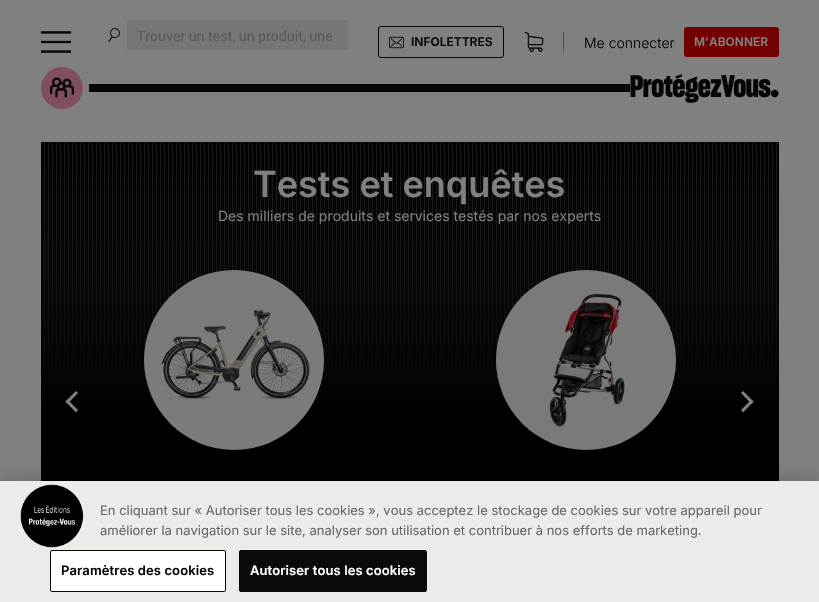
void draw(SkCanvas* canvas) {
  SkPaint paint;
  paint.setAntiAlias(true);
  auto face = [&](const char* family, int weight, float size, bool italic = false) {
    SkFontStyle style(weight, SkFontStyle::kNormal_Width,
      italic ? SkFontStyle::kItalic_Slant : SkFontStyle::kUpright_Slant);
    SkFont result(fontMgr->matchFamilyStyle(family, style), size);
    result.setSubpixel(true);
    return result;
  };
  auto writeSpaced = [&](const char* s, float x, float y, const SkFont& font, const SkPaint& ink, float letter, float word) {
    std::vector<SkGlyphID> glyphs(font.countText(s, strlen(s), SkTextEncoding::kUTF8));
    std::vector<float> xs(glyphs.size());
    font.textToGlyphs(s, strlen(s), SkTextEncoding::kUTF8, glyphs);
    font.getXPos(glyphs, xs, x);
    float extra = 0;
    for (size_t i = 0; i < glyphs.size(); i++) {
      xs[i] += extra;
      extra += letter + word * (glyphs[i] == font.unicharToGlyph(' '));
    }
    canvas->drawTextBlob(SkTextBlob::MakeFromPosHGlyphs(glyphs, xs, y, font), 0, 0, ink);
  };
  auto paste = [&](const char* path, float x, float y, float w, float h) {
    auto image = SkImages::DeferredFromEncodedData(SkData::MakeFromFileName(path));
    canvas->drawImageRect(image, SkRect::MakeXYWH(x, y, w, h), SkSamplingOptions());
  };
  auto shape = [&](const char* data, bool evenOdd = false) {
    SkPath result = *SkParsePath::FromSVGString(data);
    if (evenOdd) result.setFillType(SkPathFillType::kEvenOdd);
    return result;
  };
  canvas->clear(0xff808080);
  paste("img/1.png", 41, 31, 30, 22);
  paint.setColor(0xff767674);
  canvas->drawRect(SkRect::MakeXYWH(127, 20, 221, 30), paint);
  paint.setStroke(true);
  paint.setStrokeWidth(1);
  paint.setColor(0xff050605);
  canvas->drawRoundRect(SkRect::MakeXYWH(378.5f, 26.5f, 125, 31), 2.5f, 2.5f, paint);
  paste("img/2.png", 389, 36, 15, 13);
  paint.setStroke(false);
  paint.setColor(0xff535351);
  canvas->drawRect(SkRect::MakeXYWH(563, 32, 1, 20), paint);
  paint.setColor(0xff720000);
  canvas->drawRoundRect(SkRect::MakeXYWH(684, 27, 95, 30), 3, 3, paint);
  paint.setColor(0xff804f5d);
  canvas->drawCircle(62, 88, 21, paint);
  paste("img/3.png", 50, 77, 24, 21);
  paint.setColor(0xff050605);
  canvas->drawRect(SkRect::MakeXYWH(89, 84, 541, 8), paint);
  paste("img/4.png", 630, 74, 149, 29);
  paste("img/5.png", 41, 142, 738, 339);
  paint.setColor(0xff808080);
  canvas->drawPath(shape("M76 412.5L65.5 401.5L67.5 399.5L78 410Z"), paint);
  canvas->drawPath(shape("M67.5 404L65.5 401.5L76 391L78 393Z"), paint);
  paste("img/6.png", 144, 270, 180, 180);
  paste("img/7.png", 496, 270, 180, 180);
  canvas->drawPath(shape("M743 391L753.5 401.5L751.5 404L741 393Z"), paint);
  canvas->drawPath(shape("M751.5 399.5L753.5 401.5L743 412.5L741 410Z"), paint);
  paint.setColor(0x33000000);
  paint.setMaskFilter(SkMaskFilter::MakeBlur(kNormal_SkBlurStyle, 9));
  canvas->drawRect(SkRect::MakeXYWH(0, 481, 819, 121), paint);
  paint.setMaskFilter(nullptr);
  paint.setColor(0xffebebe7);
  canvas->drawRect(SkRect::MakeXYWH(0, 481, 819, 121), paint);
  paste("img/8.png", 20, 484, 64, 64);
  paint.setColor(0xffffffff);
  canvas->drawRoundRect(SkRect::MakeXYWH(50.5f, 550.5f, 175, 41), 1.5f, 1.5f, paint);
  paint.setStroke(true);
  paint.setColor(0xff0a0b09);
  canvas->drawRoundRect(SkRect::MakeXYWH(50.5f, 550.5f, 175, 41), 1.5f, 1.5f, paint);
  paint.setStroke(false);
  canvas->drawRoundRect(SkRect::MakeXYWH(239.5f, 550.5f, 187, 41), 1.5f, 1.5f, paint);
  paint.setStroke(true);
  canvas->drawRoundRect(SkRect::MakeXYWH(239.5f, 550.5f, 187, 41), 1.5f, 1.5f, paint);
  auto f0 = face("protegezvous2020", 400, 14);
  paint.setStroke(false);
  paint.setColor(0xff1a1a1a);
  canvas->drawString("5", 107, 42, f0, paint);
  auto f1 = face("Roboto", 400, 14);
  paint.setColor(0xff595959);
  canvas->drawString("Trouver un test, un produit, une", 137, 41, f1, paint);
  auto f2 = face("Inter", 600, 12);
  paint.setColor(0xff050605);
  canvas->drawString("INFOLETTRES", 411, 46, f2, paint);
  auto f3 = face("protegezvous2020", 400, 20);
  canvas->drawString("6", 524, 52, f3, paint);
  auto f4 = face("Inter", 300, 14);
  canvas->drawString("Me connecter", 584, 48, f4, paint);
  paint.setColor(0xff808080);
  canvas->drawString("M'ABONNER", 694, 46, f2, paint);
  auto f5 = face("Inter", 600, 36);
  canvas->drawString("Tests et enquêtes", 253, 197, f5, paint);
  auto f6 = face("Inter", 400, 14);
  canvas->drawString("Des milliers de produits et services testés par nos experts", 218, 221, f6, paint);
  auto f7 = face("Inter", 400, 13);
  paint.setColor(0xff696969);
  canvas->drawString("En cliquant sur « Autoriser tous les cookies », vous acceptez le stockage de cookies sur votre appareil pour", 100, 515, f7, paint);
  canvas->drawString("améliorer la navigation sur le site, analyser son utilisation et contribuer à nos efforts de marketing.", 100, 535, f7, paint);
  auto f8 = face("Inter", 600, 13);
  paint.setColor(0xff050605);
  writeSpaced("Paramètres des cookies", 61, 575, f8, paint, 0.1f, 0);
  paint.setColor(0xffffffff);
  writeSpaced("Autoriser tous les cookies", 250, 575, f8, paint, 0.1f, 0);
}
